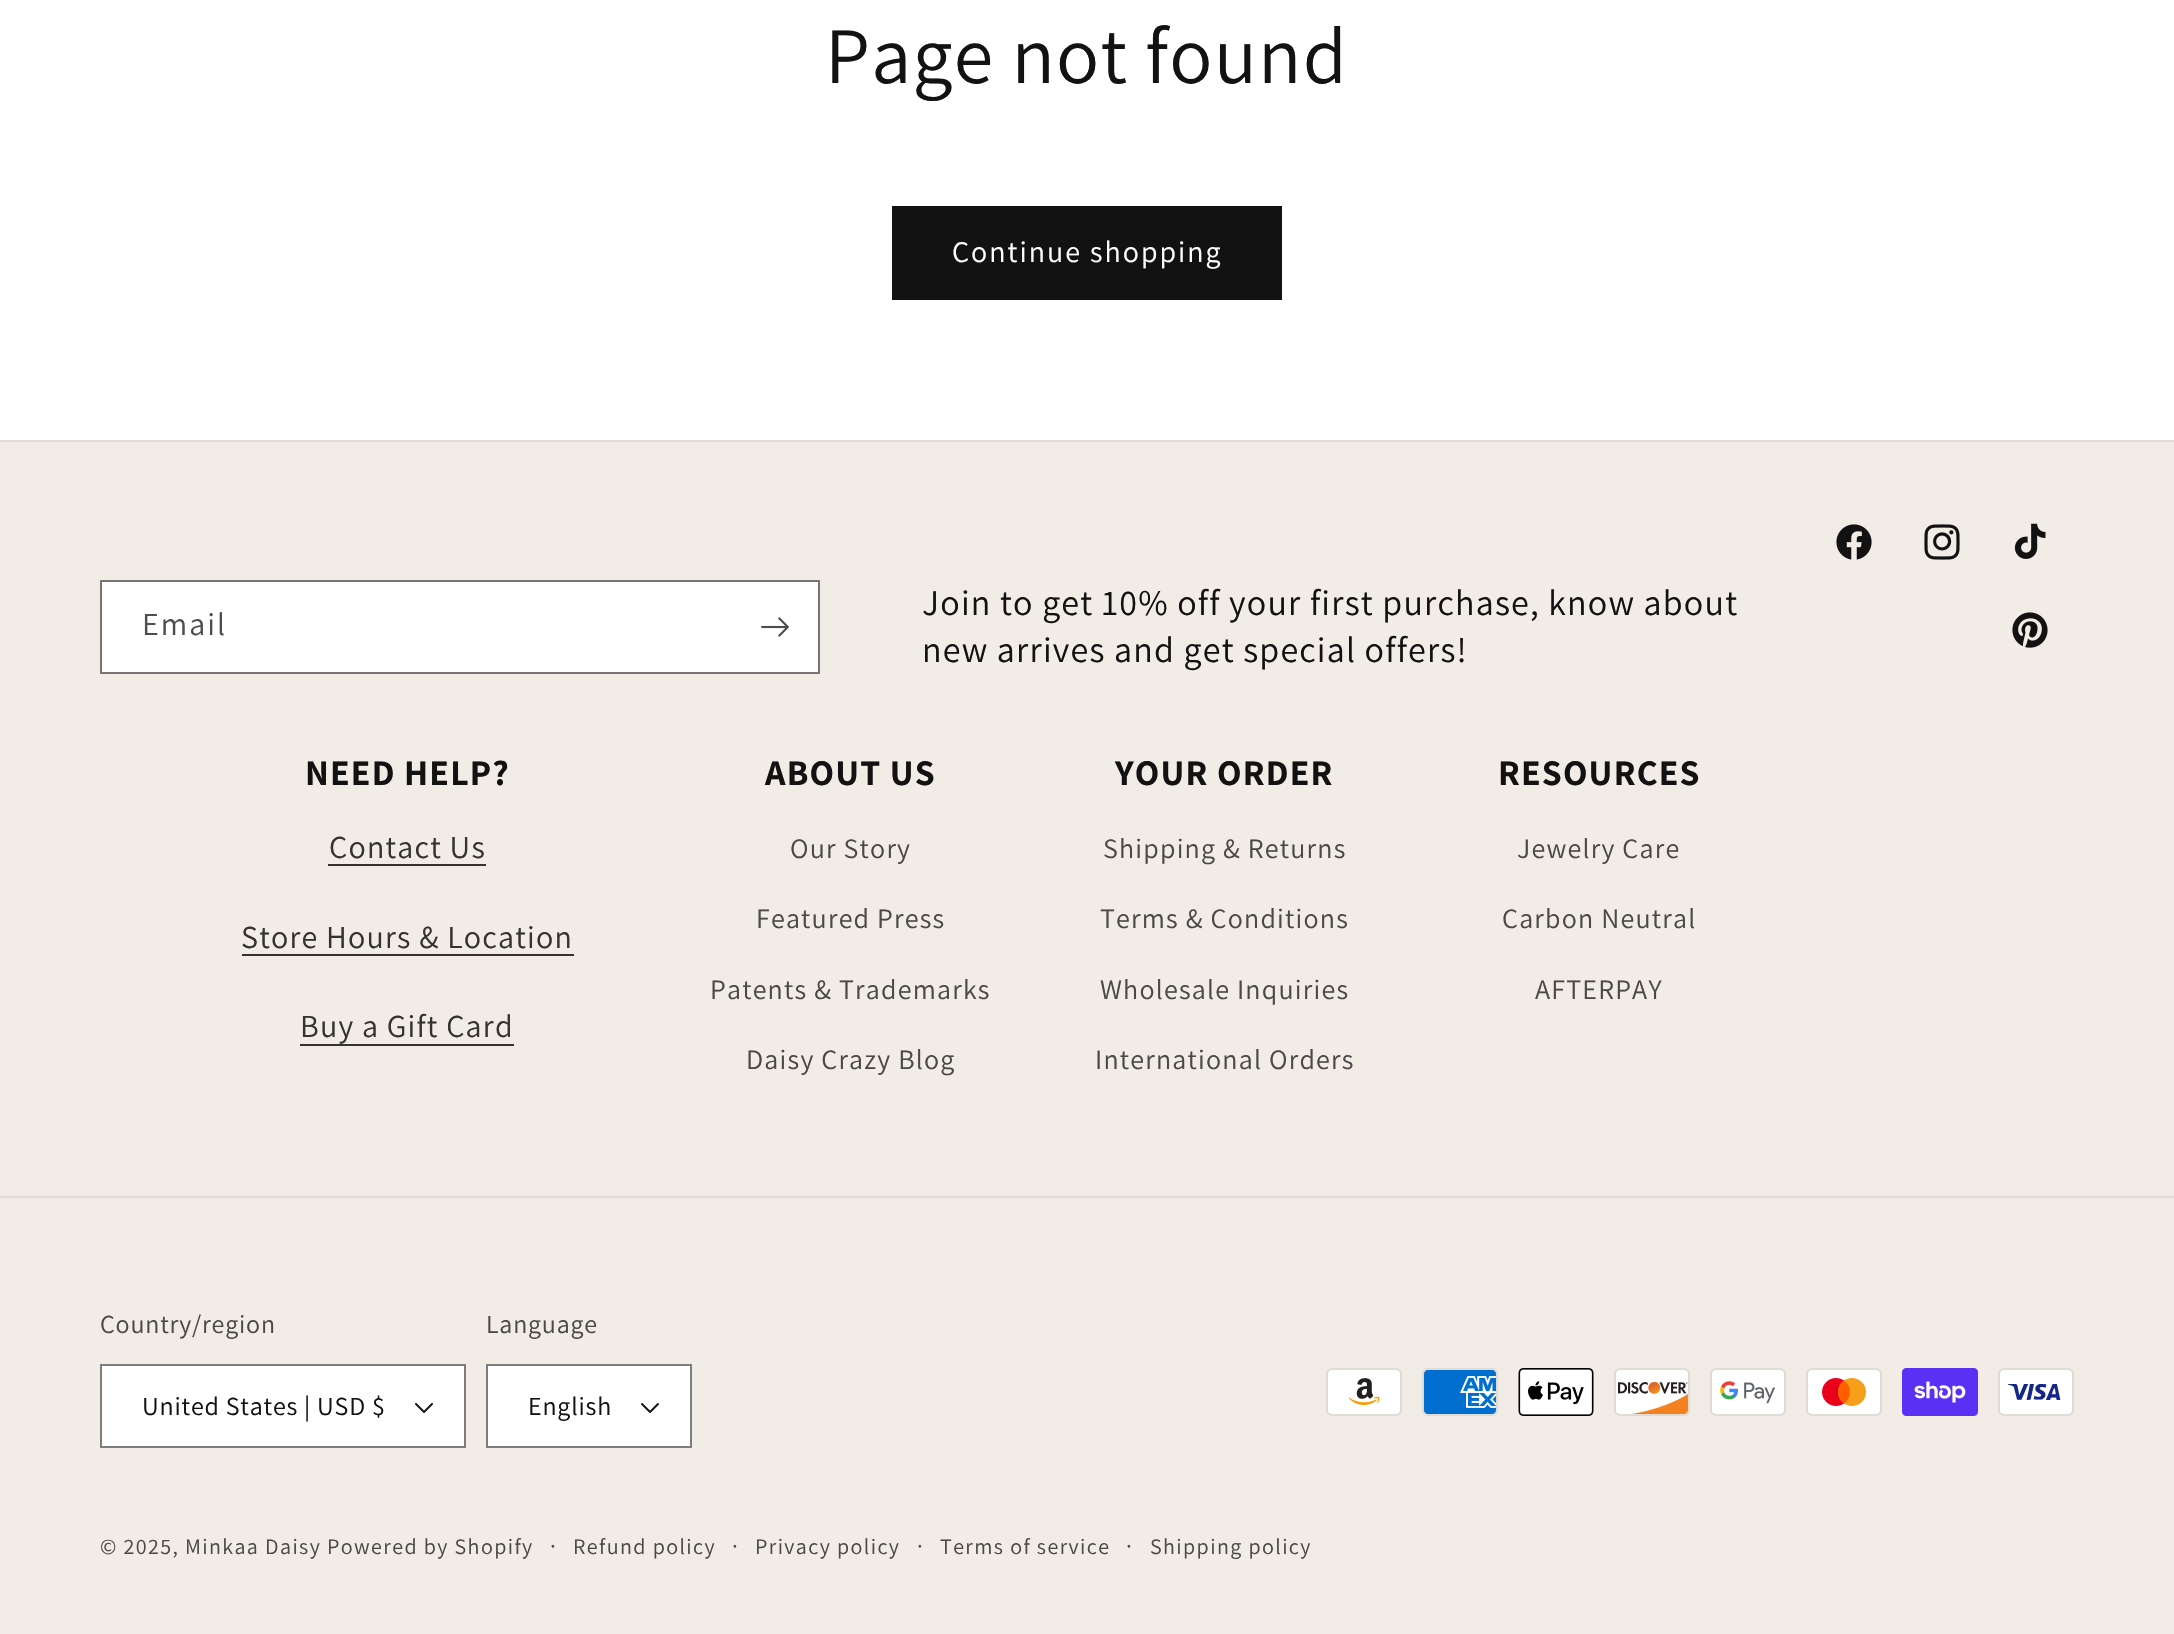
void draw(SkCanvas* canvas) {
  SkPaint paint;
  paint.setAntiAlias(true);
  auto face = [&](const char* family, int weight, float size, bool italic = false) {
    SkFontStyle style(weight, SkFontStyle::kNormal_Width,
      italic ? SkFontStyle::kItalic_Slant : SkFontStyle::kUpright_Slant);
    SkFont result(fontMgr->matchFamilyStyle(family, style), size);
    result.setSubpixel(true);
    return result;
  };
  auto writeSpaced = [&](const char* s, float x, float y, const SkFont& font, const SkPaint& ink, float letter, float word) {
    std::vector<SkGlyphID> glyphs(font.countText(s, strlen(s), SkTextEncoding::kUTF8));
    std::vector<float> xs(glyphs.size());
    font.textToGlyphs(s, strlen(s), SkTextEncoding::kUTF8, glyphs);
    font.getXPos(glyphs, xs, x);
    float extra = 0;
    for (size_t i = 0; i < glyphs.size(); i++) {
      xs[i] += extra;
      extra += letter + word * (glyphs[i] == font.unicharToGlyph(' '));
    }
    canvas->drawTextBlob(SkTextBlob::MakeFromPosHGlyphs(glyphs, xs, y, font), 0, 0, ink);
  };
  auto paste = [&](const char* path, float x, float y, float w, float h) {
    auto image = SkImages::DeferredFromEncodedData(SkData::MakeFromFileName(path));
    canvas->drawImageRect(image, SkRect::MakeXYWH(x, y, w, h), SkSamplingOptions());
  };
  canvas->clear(0xffffffff);
  {
    const struct { float x, y, w, h; SkColor color; } items[] = {
      {892, 206, 390, 94, 0xff121212},
      {0, 442, 2174, 1192, 0xfff2ece6},
      {0, 440, 2174, 2, 0xffe0dbd5},
      {102, 582, 716, 90, 0xffffffff},
    };
    for (auto [x, y, w, h, color] : items) {
      paint.setColor(color);
      canvas->drawRect(SkRect::MakeXYWH(x, y, w, h), paint);
    }
  }
  paint.setStroke(true);
  paint.setStrokeWidth(2);
  paint.setColor(0xff777471);
  canvas->drawRect(SkRect::MakeXYWH(101, 581, 718, 92), paint);
  paste("img/1.png", 761, 617, 28, 20);
  paste("img/2.png", 1836, 524, 36, 36);
  paste("img/3.png", 1924, 524, 36, 36);
  paste("img/4.png", 2014, 523, 32, 36);
  paste("img/5.png", 2012, 612, 36, 36);
  paint.setStroke(false);
  {
    const struct { float x, y, w, h; SkColor color; } items[] = {
      {328, 864, 158, 2, 0xff343332},
      {242, 954, 332, 2, 0xff343332},
      {300, 1044, 214, 2, 0xff343332},
      {0, 1196, 2174, 2, 0xffe0dbd5},
      {102, 1366, 362, 80, 0xffffffff},
    };
    for (auto [x, y, w, h, color] : items) {
      paint.setColor(color);
      canvas->drawRect(SkRect::MakeXYWH(x, y, w, h), paint);
    }
  }
  paste("img/6.png", 415, 1403, 18, 10);
  paint.setStroke(true);
  paint.setColor(0xff7d7d7d);
  canvas->drawRect(SkRect::MakeXYWH(101, 1365, 364, 82), paint);
  paint.setStroke(false);
  paint.setColor(0xffffffff);
  canvas->drawRect(SkRect::MakeXYWH(488, 1366, 202, 80), paint);
  paste("img/6.png", 641, 1403, 18, 10);
  paint.setStroke(true);
  paint.setColor(0xff7d7d7d);
  canvas->drawRect(SkRect::MakeXYWH(487, 1365, 204, 82), paint);
  paste("img/7.png", 1326, 1368, 76, 48);
  paste("img/8.png", 1422, 1368, 76, 48);
  paste("img/9.png", 1518, 1368, 76, 48);
  paste("img/10.png", 1614, 1368, 76, 48);
  paste("img/11.png", 1710, 1368, 76, 48);
  paste("img/12.png", 1806, 1368, 76, 48);
  paste("img/13.png", 1902, 1368, 76, 48);
  paste("img/14.png", 1998, 1368, 76, 48);
  auto f0 = face("Assistant", 400, 80);
  paint.setStroke(false);
  paint.setColor(0xff121212);
  writeSpaced("Page not found", 825, 83, f0, paint, 1.2f, 0);
  auto f1 = face("Assistant", 400, 30);
  paint.setColor(0xffffffff);
  writeSpaced("Continue shopping", 952, 262, f1, paint, 2, 0);
  auto f2 = face("Assistant", 400, 32);
  paint.setColor(0xff4d4d4d);
  writeSpaced("Email", 142, 635, f2, paint, 2, 0);
  auto f3 = face("Assistant", 400, 36);
  paint.setColor(0xff121212);
  writeSpaced("Join to get 10% off your first purchase, know about", 922, 615, f3, paint, 1.2f, 0);
  writeSpaced("new arrives and get special offers!", 922, 662, f3, paint, 1.2f, 0);
  auto f4 = face("Assistant", 700, 36);
  writeSpaced("NEED HELP?", 305, 785, f4, paint, 1.2f, 0);
  paint.setColor(0xff343332);
  {
    const struct { const char* s; float x, y; } items[] = {
      {"Contact Us", 329, 858},
      {"Store Hours & Location", 241, 948},
      {"Buy a Gift Card", 300, 1037},
    };
    for (auto [s, x, y] : items) {
      writeSpaced(s, x, y, f2, paint, 1.2f, 0);
    }
  }
  paint.setColor(0xff121212);
  writeSpaced("ABOUT US", 765, 785, f4, paint, 1.2f, 0);
  auto f5 = face("Assistant", 400, 28);
  paint.setColor(0xff4a4947);
  {
    const struct { const char* s; float x, y; } items[] = {
      {"Our Story", 790, 858},
      {"Featured Press", 756, 928},
      {"Patents & Trademarks", 710, 999},
      {"Daisy Crazy Blog", 746, 1069},
    };
    for (auto [s, x, y] : items) {
      writeSpaced(s, x, y, f5, paint, 1.2f, 0);
    }
  }
  paint.setColor(0xff121212);
  writeSpaced("YOUR ORDER", 1115, 785, f4, paint, 1.2f, 0);
  paint.setColor(0xff4a4947);
  {
    const struct { const char* s; float x, y; } items[] = {
      {"Shipping & Returns", 1103, 858},
      {"Terms & Conditions", 1100, 928},
      {"Wholesale Inquiries", 1100, 999},
      {"International Orders", 1095, 1069},
    };
    for (auto [s, x, y] : items) {
      writeSpaced(s, x, y, f5, paint, 1.2f, 0);
    }
  }
  paint.setColor(0xff121212);
  writeSpaced("RESOURCES", 1498, 785, f4, paint, 1.2f, 0);
  paint.setColor(0xff4a4947);
  {
    const struct { const char* s; float x, y; } items[] = {
      {"Jewelry Care", 1517, 858},
      {"Carbon Neutral", 1502, 928},
      {"AFTERPAY", 1535, 999},
    };
    for (auto [s, x, y] : items) {
      writeSpaced(s, x, y, f5, paint, 1.2f, 0);
    }
  }
  auto f6 = face("Assistant", 400, 26);
  writeSpaced("Country/region", 100, 1333, f6, paint, 0.8f, 0);
  paint.setColor(0xff121212);
  writeSpaced("United States | USD $", 142, 1415, f6, paint, 0.8f, 0);
  paint.setColor(0xff4a4947);
  writeSpaced("Language", 486, 1333, f6, paint, 0.8f, 0);
  paint.setColor(0xff121212);
  writeSpaced("English", 528, 1415, f6, paint, 0.8f, 0);
  auto f7 = face("Assistant", 400, 22);
  paint.setColor(0xff4a4947);
  writeSpaced("© 2025, Minkaa Daisy", 100, 1554, f7, paint, 1.4f, 0);
  writeSpaced("Powered by Shopify", 327, 1554, f7, paint, 1.4f, 0);
  auto f8 = face("Assistant", 400, 24);
  writeSpaced("·", 550, 1554, f8, paint, 1.4f, 0);
  writeSpaced("Refund policy", 573, 1554, f7, paint, 1.4f, 0);
  writeSpaced("·", 732, 1554, f8, paint, 1.4f, 0);
  writeSpaced("Privacy policy", 755, 1554, f7, paint, 1.4f, 0);
  writeSpaced("·", 917, 1554, f8, paint, 1.4f, 0);
  writeSpaced("Terms of service", 940, 1554, f7, paint, 1.4f, 0);
  writeSpaced("·", 1126, 1554, f8, paint, 1.4f, 0);
  writeSpaced("Shipping policy", 1150, 1554, f7, paint, 1.4f, 0);
}
